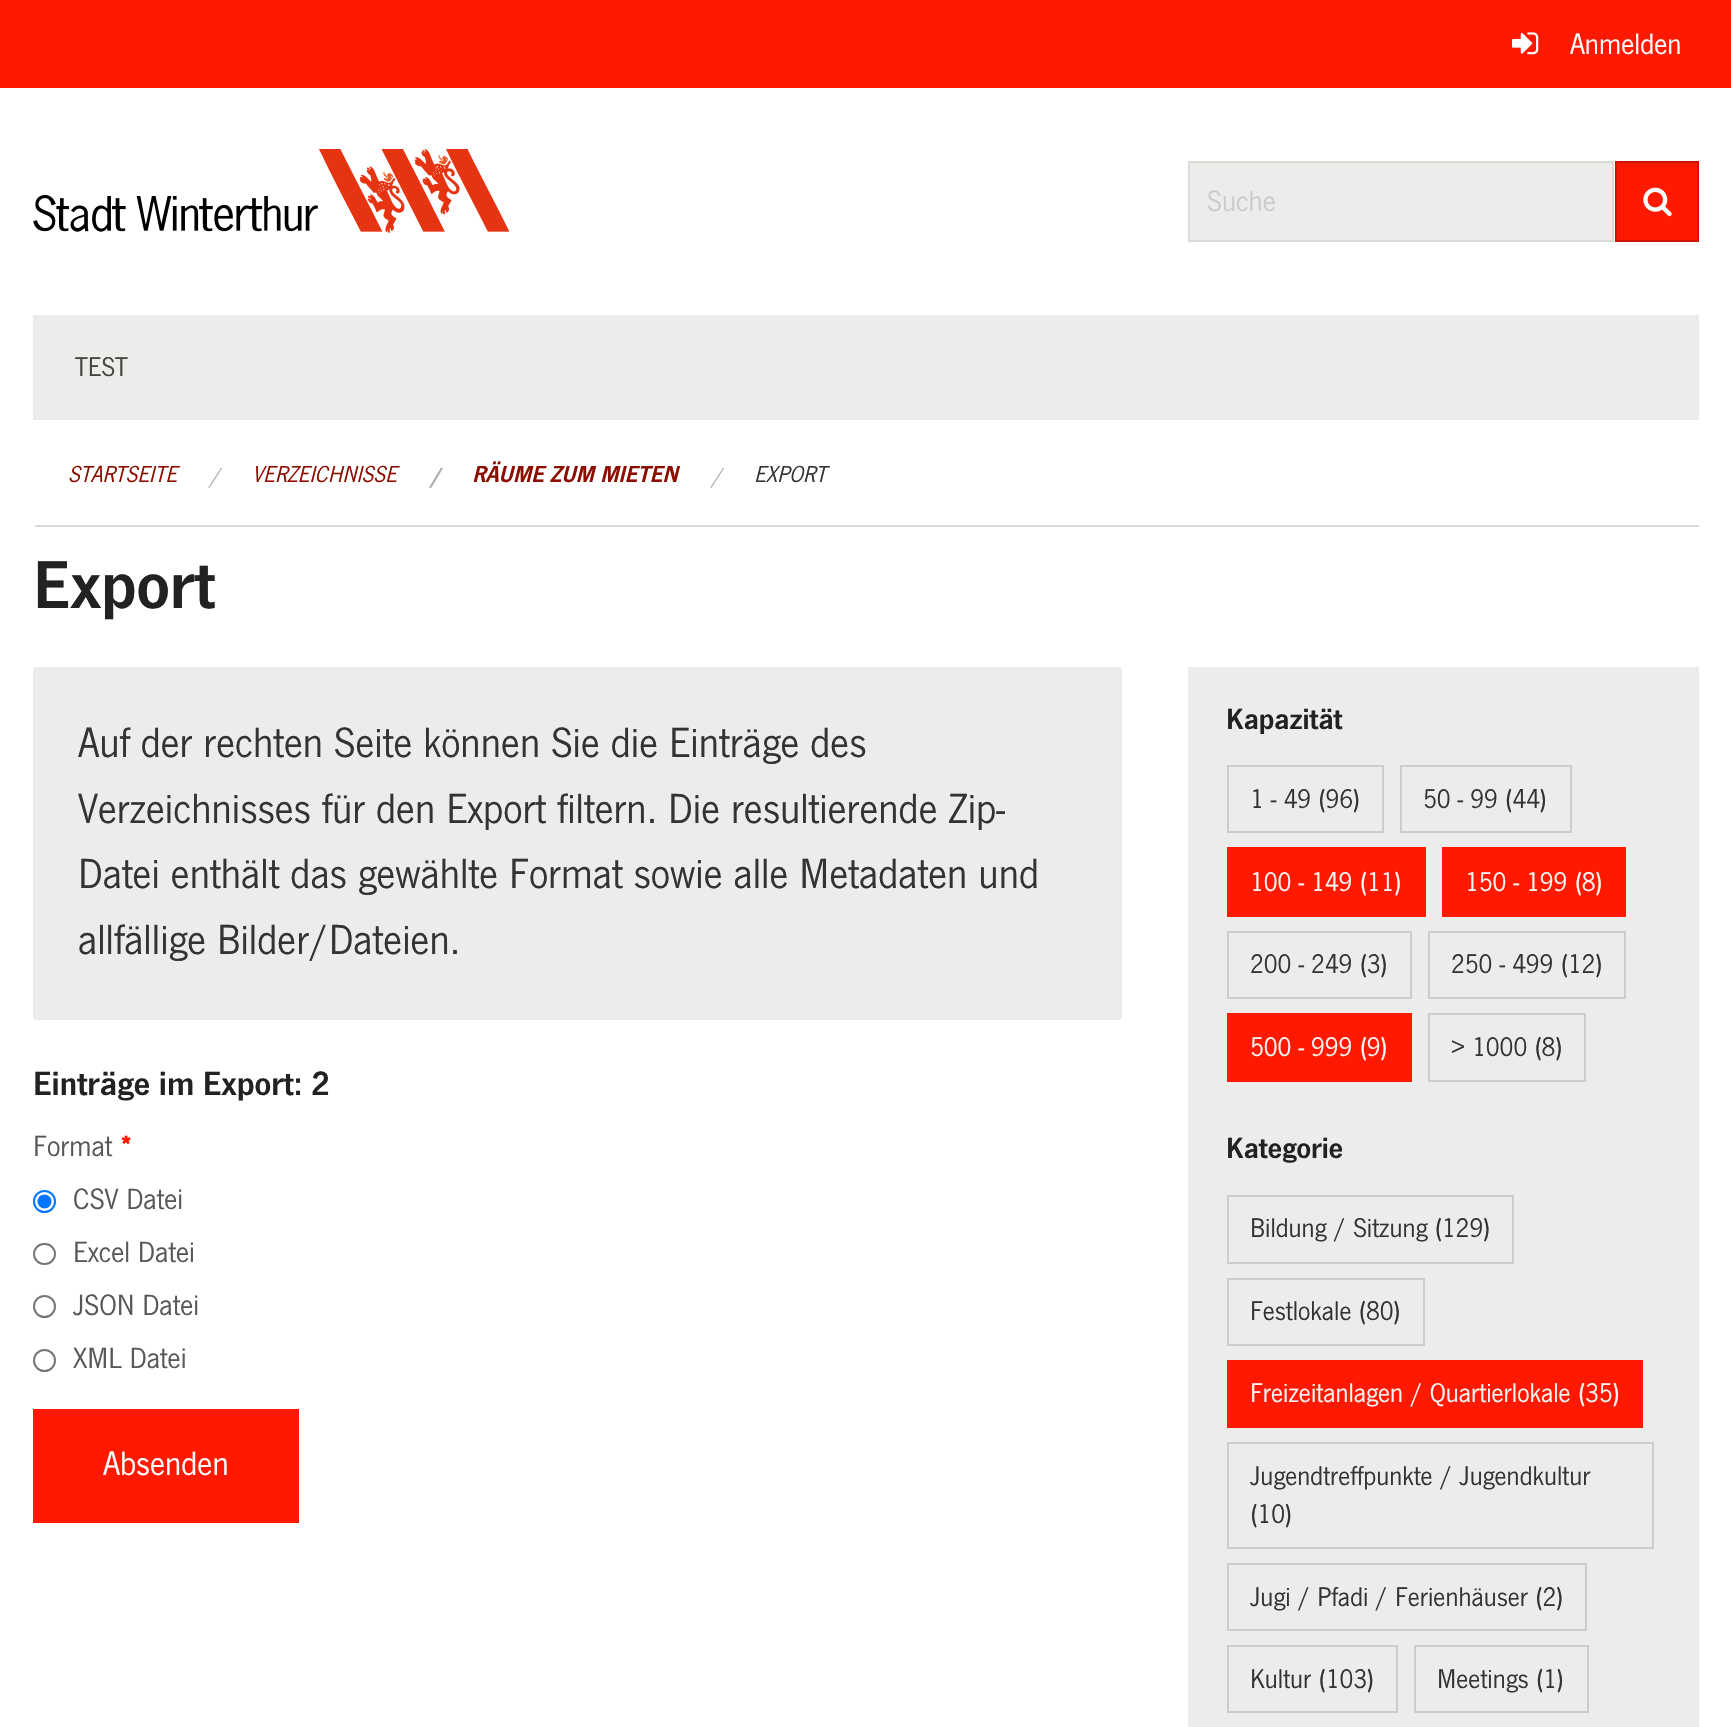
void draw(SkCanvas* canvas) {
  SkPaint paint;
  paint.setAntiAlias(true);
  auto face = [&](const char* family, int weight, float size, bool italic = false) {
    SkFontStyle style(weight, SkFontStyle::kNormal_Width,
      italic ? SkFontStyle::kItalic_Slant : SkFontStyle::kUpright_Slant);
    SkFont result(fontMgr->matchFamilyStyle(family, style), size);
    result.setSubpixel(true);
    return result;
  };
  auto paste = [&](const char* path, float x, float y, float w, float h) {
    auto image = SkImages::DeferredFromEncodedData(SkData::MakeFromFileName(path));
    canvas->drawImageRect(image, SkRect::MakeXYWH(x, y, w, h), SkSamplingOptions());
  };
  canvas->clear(0xffffffff);
  paint.setColor(0xffff1900);
  canvas->drawRect(SkRect::MakeXYWH(0, 0, 1731, 88), paint);
  paste("img/1.png", 1512, 32, 27, 23);
  paste("img/2.png", 33, 149, 477, 84);
  paint.setColor(0xffececea);
  canvas->drawRect(SkRect::MakeXYWH(1189, 162, 424, 79), paint);
  paint.setStroke(true);
  paint.setStrokeWidth(2);
  paint.setColor(0xffdadad6);
  canvas->drawRect(SkRect::MakeXYWH(1189, 162, 424, 79), paint);
  paint.setStroke(false);
  paint.setColor(0xffff1900);
  canvas->drawRect(SkRect::MakeXYWH(1616, 162, 82, 79), paint);
  paint.setStroke(true);
  paint.setColor(0xffcc1400);
  canvas->drawRect(SkRect::MakeXYWH(1616, 162, 82, 79), paint);
  paste("img/3.png", 1643, 187, 29, 30);
  paint.setStroke(false);
  paint.setColor(0xffececea);
  canvas->drawRect(SkRect::MakeXYWH(33, 315, 1666, 105), paint);
  paint.setColor(0xffdadad6);
  canvas->drawRect(SkRect::MakeXYWH(35, 525, 1664, 2), paint);
  paint.setColor(0xffececea);
  canvas->drawRoundRect(SkRect::MakeXYWH(34, 668, 1087, 351), 3, 3, paint);
  paint.setStroke(true);
  paint.setColor(0xffeaecec);
  canvas->drawRoundRect(SkRect::MakeXYWH(34, 668, 1087, 351), 3, 3, paint);
  paint.setColor(0xff0075ff);
  canvas->drawCircle(44.5f, 1201.5f, 10.5f, paint);
  paint.setStroke(false);
  canvas->drawCircle(44.5f, 1201.5f, 7, paint);
  paint.setStroke(true);
  paint.setColor(0xff767676);
  canvas->drawRoundRect(SkRect::MakeXYWH(34, 1244, 21, 20), 10, 10, paint);
  canvas->drawCircle(44.5f, 1306.5f, 10.5f, paint);
  canvas->drawCircle(44.5f, 1360.5f, 10.5f, paint);
  paint.setStroke(false);
  paint.setColor(0xffff1900);
  canvas->drawRect(SkRect::MakeXYWH(33, 1409, 266, 114), paint);
  paint.setColor(0xffececea);
  canvas->drawRect(SkRect::MakeXYWH(1188, 667, 511, 1060), paint);
  paint.setStroke(true);
  paint.setColor(0xffcbcccc);
  canvas->drawRect(SkRect::MakeXYWH(1228, 766, 155, 66), paint);
  canvas->drawRect(SkRect::MakeXYWH(1401, 766, 170, 66), paint);
  paint.setStroke(false);
  paint.setColor(0xffff1900);
  canvas->drawRect(SkRect::MakeXYWH(1227, 847, 199, 70), paint);
  canvas->drawRect(SkRect::MakeXYWH(1442, 847, 184, 70), paint);
  paint.setStroke(true);
  paint.setColor(0xffcbcccc);
  canvas->drawRect(SkRect::MakeXYWH(1228, 932, 183, 66), paint);
  canvas->drawRect(SkRect::MakeXYWH(1429, 932, 196, 66), paint);
  paint.setStroke(false);
  paint.setColor(0xffff1900);
  canvas->drawRect(SkRect::MakeXYWH(1227, 1013, 185, 69), paint);
  paint.setStroke(true);
  paint.setColor(0xffcbcccc);
  canvas->drawRect(SkRect::MakeXYWH(1429, 1014, 156, 67), paint);
  canvas->drawRect(SkRect::MakeXYWH(1228, 1196, 285, 67), paint);
  canvas->drawRect(SkRect::MakeXYWH(1228, 1279, 196, 66), paint);
  paint.setStroke(false);
  paint.setColor(0xffff1900);
  canvas->drawRect(SkRect::MakeXYWH(1227, 1360, 416, 68), paint);
  paint.setStroke(true);
  paint.setColor(0xffcbcccc);
  canvas->drawRect(SkRect::MakeXYWH(1228, 1443, 425, 105), paint);
  canvas->drawRect(SkRect::MakeXYWH(1228, 1564, 358, 66), paint);
  canvas->drawRect(SkRect::MakeXYWH(1228, 1646, 169, 66), paint);
  canvas->drawRect(SkRect::MakeXYWH(1415, 1646, 173, 66), paint);
  auto f0 = face("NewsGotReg", 400, 30.5f);
  paint.setStroke(false);
  paint.setColor(0xffffffff);
  canvas->drawString("Anmelden", 1570, 54, f0, paint);
  paint.setColor(0xffcccccc);
  canvas->drawString("Suche", 1207, 211, f0, paint);
  auto f1 = face("NewsGotReg", 400, 28);
  paint.setColor(0xff44443f);
  canvas->drawString("TEST", 75, 376, f1, paint);
  auto f2 = face("NewsGotReg", 400, 24, true);
  paint.setColor(0xff8c0e00);
  canvas->drawString("STARTSEITE", 68, 482, f2, paint);
  paint.setColor(0xffaaaaaa);
  canvas->drawString("/", 209, 484, f2, paint);
  paint.setColor(0xff8c0e00);
  canvas->drawString("VERZEICHNISSE", 252, 482, f2, paint);
  auto f3 = face("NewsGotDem", 400, 24, true);
  paint.setColor(0xffaaaaaa);
  canvas->drawString("/", 430, 484, f3, paint);
  paint.setColor(0xff8c0e00);
  canvas->drawString("RÄUME ZUM MIETEN", 472, 482, f3, paint);
  paint.setColor(0xffaaaaaa);
  canvas->drawString("/", 711, 484, f2, paint);
  paint.setColor(0xff333333);
  canvas->drawString("EXPORT", 754, 482, f2, paint);
  auto f4 = face("NewsGotDem", 400, 70);
  paint.setColor(0xff222222);
  canvas->drawString("Export", 33, 608, f4, paint);
  auto f5 = face("NewsGotReg", 400, 43.75f);
  paint.setColor(0xff333333);
  {
    const struct { const char* s; float x, y; } items[] = {
      {"Auf der rechten Seite können Sie die Einträge des", 78, 757},
      {"Verzeichnisses für den Export filtern. Die resultierende Zip-", 78, 823},
      {"Datei enthält das gewählte Format sowie alle Metadaten und", 78, 888},
      {"allfällige Bilder/Dateien.", 78, 954},
    };
    for (auto [s, x, y] : items) {
      canvas->drawString(s, x, y, f5, paint);
    }
  }
  auto f6 = face("NewsGotDem", 400, 35);
  paint.setColor(0xff222222);
  canvas->drawString("Einträge im Export: 2", 33, 1095, f6, paint);
  paint.setColor(0xff575757);
  canvas->drawString("Format", 33, 1156, f0, paint);
  auto f7 = face("NewsGotDem", 400, 30.5f);
  paint.setColor(0xffff1900);
  canvas->drawString("*", 120, 1156, f7, paint);
  paint.setColor(0xff575757);
  {
    const struct { const char* s; float x, y; } items[] = {
      {"CSV Datei", 73, 1209},
      {"Excel Datei", 73, 1262},
      {"JSON Datei", 73, 1315},
      {"XML Datei", 73, 1368},
    };
    for (auto [s, x, y] : items) {
      canvas->drawString(s, x, y, f0, paint);
    }
  }
  auto f8 = face("NewsGotReg", 400, 35);
  paint.setColor(0xffffffff);
  canvas->drawString("Absenden", 103, 1475, f8, paint);
  paint.setColor(0xff222222);
  canvas->drawString("Kapazität", 1226, 729, f7, paint);
  paint.setColor(0xff333333);
  canvas->drawString("1 - 49 (96)", 1250, 808, f1, paint);
  canvas->drawString("50 - 99 (44)", 1423, 808, f1, paint);
  paint.setColor(0xfff6f6f5);
  canvas->drawString("100 - 149 (11)", 1250, 891, f1, paint);
  canvas->drawString("150 - 199 (8)", 1465, 891, f1, paint);
  paint.setColor(0xff333333);
  canvas->drawString("200 - 249 (3)", 1250, 973, f1, paint);
  canvas->drawString("250 - 499 (12)", 1451, 973, f1, paint);
  paint.setColor(0xfff6f6f5);
  canvas->drawString("500 - 999 (9)", 1250, 1056, f1, paint);
  paint.setColor(0xff333333);
  canvas->drawString("> 1000 (8)", 1451, 1056, f1, paint);
  paint.setColor(0xff222222);
  canvas->drawString("Kategorie", 1226, 1158, f7, paint);
  paint.setColor(0xff333333);
  canvas->drawString("Bildung / Sitzung (129)", 1250, 1237, f1, paint);
  canvas->drawString("Festlokale (80)", 1250, 1320, f1, paint);
  paint.setColor(0xfff6f6f5);
  canvas->drawString("Freizeitanlagen / Quartierlokale (35)", 1250, 1402, f1, paint);
  paint.setColor(0xff333333);
  {
    const struct { const char* s; float x, y; } items[] = {
      {"Jugendtreffpunkte / Jugendkultur", 1250, 1485},
      {"(10)", 1250, 1523},
      {"Jugi / Pfadi / Ferienhäuser (2)", 1250, 1606},
      {"Kultur (103)", 1250, 1688},
      {"Meetings (1)", 1437, 1688},
    };
    for (auto [s, x, y] : items) {
      canvas->drawString(s, x, y, f1, paint);
    }
  }
}
